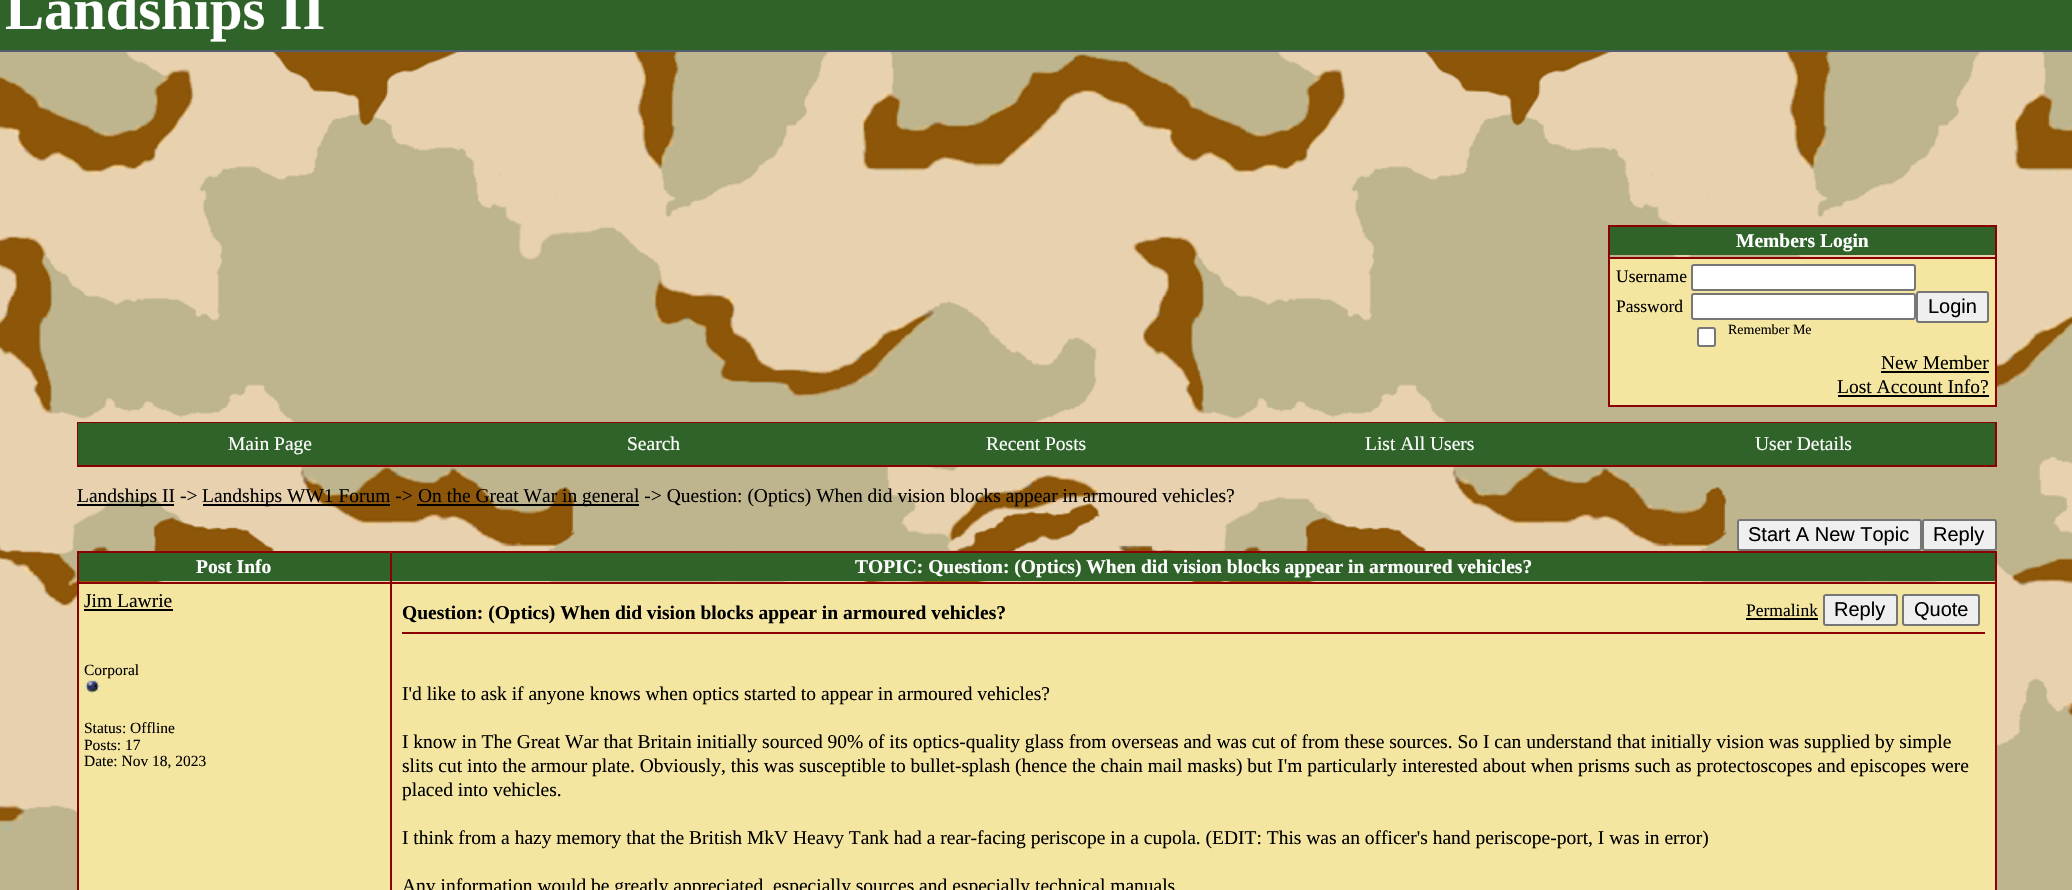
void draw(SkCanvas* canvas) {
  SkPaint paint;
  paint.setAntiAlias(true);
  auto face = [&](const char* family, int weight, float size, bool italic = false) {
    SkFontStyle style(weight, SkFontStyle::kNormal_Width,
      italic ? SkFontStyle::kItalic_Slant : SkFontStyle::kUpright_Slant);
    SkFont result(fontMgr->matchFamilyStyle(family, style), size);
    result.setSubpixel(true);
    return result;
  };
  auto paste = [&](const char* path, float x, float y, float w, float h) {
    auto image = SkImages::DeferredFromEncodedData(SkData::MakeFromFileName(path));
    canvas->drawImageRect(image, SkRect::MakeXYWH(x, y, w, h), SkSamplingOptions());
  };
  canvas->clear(0xffffffff);
  paste("img/1.png", 0, 52, 2072, 838);
  {
    const struct { float x, y, w, h; SkColor color; } items[] = {
      {0, 0, 2072, 50, 0xff2f632a},
      {0, 50, 2072, 2, 0xff525e6e},
      {1608, 225, 389, 2, 0xff8b0000},
      {1995, 225, 2, 182, 0xff8b0000},
      {1608, 405, 389, 2, 0xff8b0000},
      {1608, 225, 2, 182, 0xff8b0000},
      {1610, 227, 385, 28, 0xff2f632a},
      {1608, 257, 389, 2, 0xff8b0000},
      {1610, 259, 385, 146, 0xfff4e6a1},
    };
    for (auto [x, y, w, h, color] : items) {
      paint.setColor(color);
      canvas->drawRect(SkRect::MakeXYWH(x, y, w, h), paint);
    }
  }
  paint.setColor(0xffffffff);
  canvas->drawRoundRect(SkRect::MakeXYWH(1692, 265, 223, 25), 2, 2, paint);
  paint.setStroke(true);
  paint.setStrokeWidth(2);
  paint.setColor(0xff767676);
  canvas->drawRoundRect(SkRect::MakeXYWH(1692, 265, 223, 25), 2, 2, paint);
  paint.setStroke(false);
  paint.setColor(0xffffffff);
  canvas->drawRoundRect(SkRect::MakeXYWH(1692, 294, 223, 25), 2, 2, paint);
  paint.setStroke(true);
  paint.setColor(0xff767676);
  canvas->drawRoundRect(SkRect::MakeXYWH(1692, 294, 223, 25), 2, 2, paint);
  paint.setStroke(false);
  paint.setColor(0xffefefef);
  canvas->drawRoundRect(SkRect::MakeXYWH(1917, 292, 71, 30), 2, 2, paint);
  paint.setStroke(true);
  paint.setColor(0xff767676);
  canvas->drawRoundRect(SkRect::MakeXYWH(1917, 292, 71, 30), 2, 2, paint);
  paint.setStroke(false);
  paint.setColor(0xffffffff);
  canvas->drawRoundRect(SkRect::MakeXYWH(1698, 328, 17, 18), 2, 2, paint);
  paint.setStroke(true);
  paint.setColor(0xff767676);
  canvas->drawRoundRect(SkRect::MakeXYWH(1698, 328, 17, 18), 2, 2, paint);
  paint.setStroke(false);
  paint.setColor(0xff000000);
  canvas->drawRect(SkRect::MakeXYWH(1881, 371, 108, 2), paint);
  canvas->drawRect(SkRect::MakeXYWH(1838, 395, 151, 2), paint);
  paint.setStroke(true);
  paint.setColor(0xff8b0000);
  canvas->drawRect(SkRect::MakeXYWH(78, 423, 1918, 43), paint);
  paint.setStroke(false);
  {
    const struct { float x, y, w, h; SkColor color; } items[] = {
      {78, 423, 1917, 42, 0xff2f632a},
      {77, 504, 97, 2, 0xff000000},
      {203, 504, 187, 2, 0xff000000},
      {417, 504, 222, 2, 0xff000000},
    };
    for (auto [x, y, w, h, color] : items) {
      paint.setColor(color);
      canvas->drawRect(SkRect::MakeXYWH(x, y, w, h), paint);
    }
  }
  paint.setColor(0xffefefef);
  canvas->drawRoundRect(SkRect::MakeXYWH(1738, 520, 183, 30), 2, 2, paint);
  paint.setStroke(true);
  paint.setColor(0xff767676);
  canvas->drawRoundRect(SkRect::MakeXYWH(1738, 520, 183, 30), 2, 2, paint);
  paint.setStroke(false);
  paint.setColor(0xffefefef);
  canvas->drawRoundRect(SkRect::MakeXYWH(1923, 520, 73, 30), 2, 2, paint);
  paint.setStroke(true);
  paint.setColor(0xff767676);
  canvas->drawRoundRect(SkRect::MakeXYWH(1923, 520, 73, 30), 2, 2, paint);
  paint.setStroke(false);
  {
    const struct { float x, y, w, h; SkColor color; } items[] = {
      {77, 551, 1920, 2, 0xff8b0000},
      {1995, 551, 2, 339, 0xff8b0000},
      {77, 551, 2, 339, 0xff8b0000},
      {79, 553, 311, 28, 0xff2f632a},
      {390, 582, 1607, 2, 0xff8b0000},
      {390, 582, 2, 308, 0xff8b0000},
      {77, 582, 315, 2, 0xff8b0000},
      {390, 551, 2, 33, 0xff8b0000},
      {392, 553, 1603, 28, 0xff2f632a},
      {79, 584, 311, 306, 0xfff4e6a1},
      {84, 609, 89, 2, 0xff000000},
    };
    for (auto [x, y, w, h, color] : items) {
      paint.setColor(color);
      canvas->drawRect(SkRect::MakeXYWH(x, y, w, h), paint);
    }
  }
  paste("img/2.png", 85, 680, 15, 14);
  paint.setColor(0xfff4e6a1);
  canvas->drawRect(SkRect::MakeXYWH(392, 584, 1603, 306), paint);
  paint.setColor(0xff000000);
  canvas->drawRect(SkRect::MakeXYWH(1746, 618, 72, 2), paint);
  paint.setColor(0xffefefef);
  canvas->drawRoundRect(SkRect::MakeXYWH(1824, 595, 73, 30), 2, 2, paint);
  paint.setStroke(true);
  paint.setColor(0xff767676);
  canvas->drawRoundRect(SkRect::MakeXYWH(1824, 595, 73, 30), 2, 2, paint);
  paint.setStroke(false);
  paint.setColor(0xffefefef);
  canvas->drawRoundRect(SkRect::MakeXYWH(1903, 595, 76, 30), 2, 2, paint);
  paint.setStroke(true);
  paint.setColor(0xff767676);
  canvas->drawRoundRect(SkRect::MakeXYWH(1903, 595, 76, 30), 2, 2, paint);
  paint.setStroke(false);
  paint.setColor(0xff8b0000);
  canvas->drawRect(SkRect::MakeXYWH(402, 632, 1583, 2), paint);
  auto f0 = face("Liberation Serif", 700, 58.5f);
  paint.setColor(0xffffffff);
  canvas->drawString("Landships II", 5, 29, f0, paint);
  auto f1 = face("Liberation Serif", 700, 19.5f);
  canvas->drawString("Members Login", 1736, 247, f1, paint);
  auto f2 = face("Liberation Serif", 400, 17.5f);
  paint.setColor(0xff000000);
  canvas->drawString("Username", 1616, 282, f2, paint);
  canvas->drawString("Password", 1616, 312, f2, paint);
  auto f3 = face("Liberation Sans", 400, 20);
  canvas->drawString("Login", 1928, 313, f3, paint);
  auto f4 = face("Liberation Serif", 400, 14);
  canvas->drawString("Remember Me", 1728, 334, f4, paint);
  auto f5 = face("Liberation Serif", 400, 19.5f);
  canvas->drawString("New Member", 1881, 369, f5, paint);
  canvas->drawString("Lost Account Info?", 1837, 393, f5, paint);
  paint.setColor(0xffffffff);
  {
    const struct { const char* s; float x, y; } items[] = {
      {"Main Page", 228, 450},
      {"Search", 627, 450},
      {"Recent Posts", 986, 450},
      {"List All Users", 1365, 450},
      {"User Details", 1755, 450},
    };
    for (auto [s, x, y] : items) {
      canvas->drawString(s, x, y, f5, paint);
    }
  }
  paint.setColor(0xff000000);
  {
    const struct { const char* s; float x, y; } items[] = {
      {"Landships II ->", 77, 502},
      {"Landships WW1 Forum ->", 202, 502},
      {"On the Great War in general -> Question: (Optics) When did vision blocks appear in armoured vehicles?", 418, 502},
    };
    for (auto [s, x, y] : items) {
      canvas->drawString(s, x, y, f5, paint);
    }
  }
  canvas->drawString("Start A New Topic", 1748, 541, f3, paint);
  canvas->drawString("Reply", 1933, 541, f3, paint);
  paint.setColor(0xffffffff);
  canvas->drawString("Post Info", 196, 573, f1, paint);
  canvas->drawString("TOPIC: Question: (Optics) When did vision blocks appear in armoured vehicles?", 855, 573, f1, paint);
  paint.setColor(0xff000000);
  canvas->drawString("Jim Lawrie", 84, 607, f5, paint);
  auto f6 = face("Liberation Serif", 400, 15.5f);
  {
    const struct { const char* s; float x, y; } items[] = {
      {"Corporal", 84, 675},
      {"Status: Offline", 84, 733},
      {"Posts: 17", 84, 750},
      {"Date: Nov 18, 2023", 84, 766},
    };
    for (auto [s, x, y] : items) {
      canvas->drawString(s, x, y, f6, paint);
    }
  }
  canvas->drawString("Question: (Optics) When did vision blocks appear in armoured vehicles?", 402, 619, f1, paint);
  canvas->drawString("Permalink", 1746, 616, f2, paint);
  canvas->drawString("Reply", 1834, 616, f3, paint);
  canvas->drawString("Quote", 1914, 616, f3, paint);
  {
    const struct { const char* s; float x, y; } items[] = {
      {"I'd like to ask if anyone knows when optics started to appear in armoured vehicles?", 402, 700},
      {"I know in The Great War that Britain initially sourced 90% of its optics-quality glass from overseas and was cut of from these sources. So I can understand that initially vision was supplied by simple", 402, 748},
      {"slits cut into the armour plate. Obviously, this was susceptible to bullet-splash (hence the chain mail masks) but I'm particularly interested about when prisms such as protectoscopes and episcopes were", 402, 772},
      {"placed into vehicles.", 402, 796},
      {"I think from a hazy memory that the British MkV Heavy Tank had a rear-facing periscope in a cupola. (EDIT: This was an officer's hand periscope-port, I was in error)", 402, 844},
      {"Any information would be greatly appreciated, especially sources and especially technical manuals", 402, 892},
    };
    for (auto [s, x, y] : items) {
      canvas->drawString(s, x, y, f5, paint);
    }
  }
}
